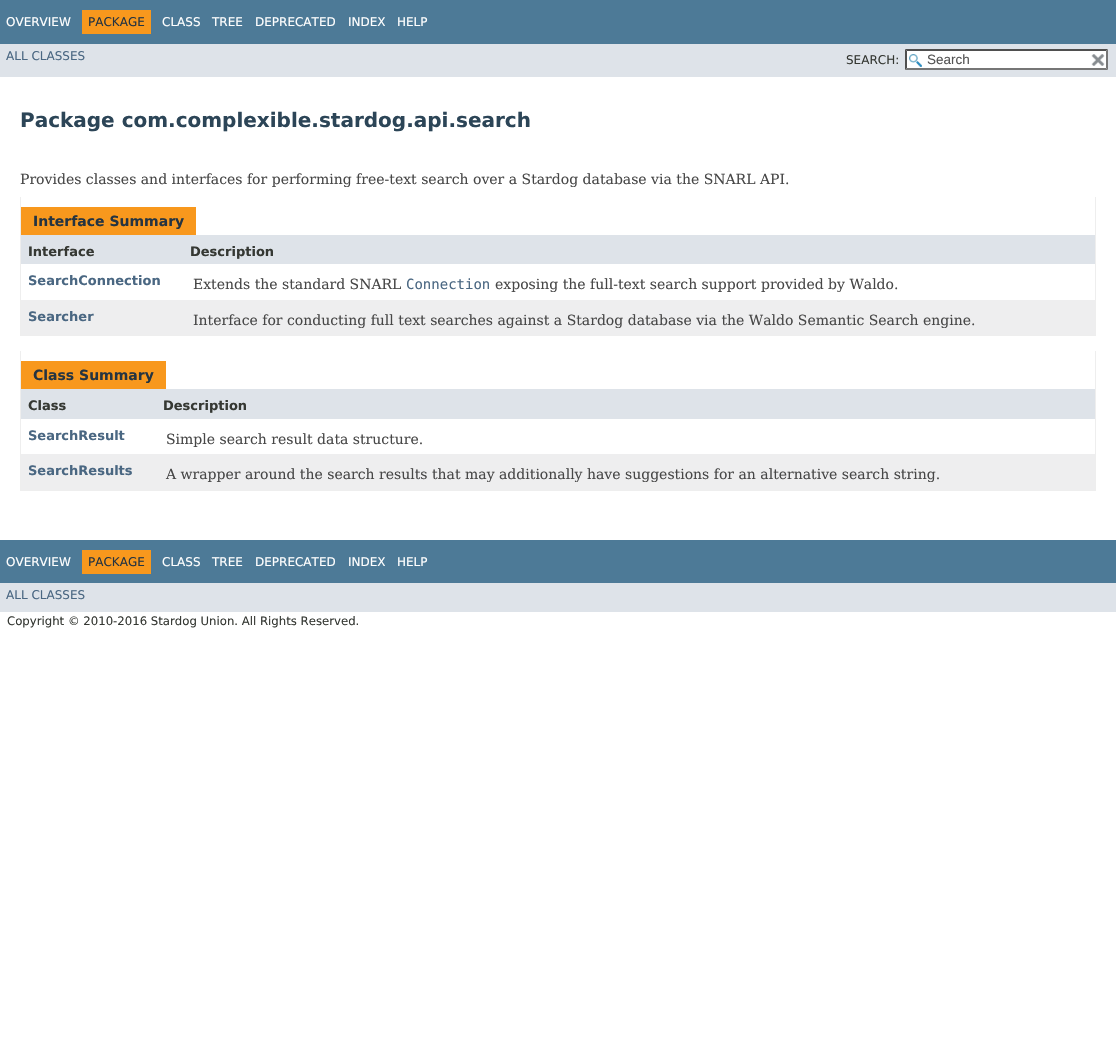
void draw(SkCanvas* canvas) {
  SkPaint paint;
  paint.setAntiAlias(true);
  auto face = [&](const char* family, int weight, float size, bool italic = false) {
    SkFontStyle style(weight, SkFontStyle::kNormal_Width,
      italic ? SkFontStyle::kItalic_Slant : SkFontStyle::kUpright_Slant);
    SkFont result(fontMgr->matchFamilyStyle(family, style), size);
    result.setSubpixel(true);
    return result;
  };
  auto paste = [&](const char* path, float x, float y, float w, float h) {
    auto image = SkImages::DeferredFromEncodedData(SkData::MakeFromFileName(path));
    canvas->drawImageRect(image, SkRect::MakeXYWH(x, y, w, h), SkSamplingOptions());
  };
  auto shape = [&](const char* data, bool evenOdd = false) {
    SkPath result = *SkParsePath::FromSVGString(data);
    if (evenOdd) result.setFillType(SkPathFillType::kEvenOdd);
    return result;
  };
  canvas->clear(0xffffffff);
  {
    const struct { float x, y, w, h; SkColor color; } items[] = {
      {0, 0, 1116, 44, 0xff4d7a97},
      {82, 10, 69, 24, 0xfff8981d},
      {0, 44, 1116, 33, 0xffdee3e9},
      {905, 49, 203, 21, 0xffffffff},
    };
    for (auto [x, y, w, h, color] : items) {
      paint.setColor(color);
      canvas->drawRect(SkRect::MakeXYWH(x, y, w, h), paint);
    }
  }
  paste("img/1.png", 909, 54, 13, 13);
  paint.setColor(0xff4f4f4f);
  canvas->drawPath(shape("M905 49H1108L1106 51H907Z"), paint);
  paint.setColor(0xff767676);
  canvas->drawPath(shape("M1108 49V70L1106 68V51Z"), paint);
  canvas->drawPath(shape("M1108 70H905L907 68H1106Z"), paint);
  paint.setColor(0xff4f4f4f);
  canvas->drawPath(shape("M905 70V49L907 51V68Z"), paint);
  paste("img/2.png", 1091, 54, 14, 12);
  {
    const struct { float x, y, w, h; SkColor color; } items[] = {
      {1095, 197, 1, 139, 0xffeeeeee},
      {20, 335, 1076, 1, 0xffeeeeee},
      {20, 197, 1, 139, 0xffeeeeee},
      {21, 207, 175, 28, 0xfff8981d},
      {21, 235, 1074, 29, 0xffdee3e9},
      {21, 300, 1074, 35, 0xffeeeeef},
      {1095, 351, 1, 140, 0xffeeeeee},
      {20, 490, 1076, 1, 0xffeeeeee},
      {20, 351, 1, 140, 0xffeeeeee},
      {21, 361, 145, 28, 0xfff8981d},
      {21, 389, 1074, 30, 0xffdee3e9},
      {21, 454, 1074, 36, 0xffeeeeef},
      {0, 540, 1116, 43, 0xff4d7a97},
      {82, 550, 69, 24, 0xfff8981d},
      {0, 583, 1116, 29, 0xffdee3e9},
    };
    for (auto [x, y, w, h, color] : items) {
      paint.setColor(color);
      canvas->drawRect(SkRect::MakeXYWH(x, y, w, h), paint);
    }
  }
  auto f0 = face("DejaVu Sans", 400, 12);
  paint.setColor(0xffffffff);
  canvas->drawString("OVERVIEW", 6, 26, f0, paint);
  paint.setColor(0xff253441);
  canvas->drawString("PACKAGE", 88, 26, f0, paint);
  paint.setColor(0xffffffff);
  {
    const struct { const char* s; float x, y; } items[] = {
      {"CLASS", 162, 26},
      {"TREE", 212, 26},
      {"DEPRECATED", 255, 26},
      {"INDEX", 348, 26},
      {"HELP", 397, 26},
    };
    for (auto [s, x, y] : items) {
      canvas->drawString(s, x, y, f0, paint);
    }
  }
  paint.setColor(0xff4a6782);
  canvas->drawString("ALL CLASSES", 6, 60, f0, paint);
  paint.setColor(0xff353833);
  canvas->drawString("SEARCH:", 846, 64, f0, paint);
  auto f1 = face("Liberation Sans", 400, 13.5f);
  paint.setColor(0xff545454);
  canvas->drawString("Search", 927, 64, f1, paint);
  auto f2 = face("DejaVu Sans", 700, 20);
  paint.setColor(0xff2c4557);
  canvas->drawString("Package com.complexible.stardog.api.search", 20, 127, f2, paint);
  auto f3 = face("DejaVu Serif", 400, 14);
  paint.setColor(0xff474747);
  canvas->drawString("Provides classes and interfaces for performing free-text search over a Stardog database via the SNARL API.", 20, 184, f3, paint);
  auto f4 = face("DejaVu Sans", 700, 14);
  paint.setColor(0xff253441);
  canvas->drawString("Interface Summary", 33, 226, f4, paint);
  auto f5 = face("DejaVu Sans", 700, 13);
  paint.setColor(0xff353833);
  canvas->drawString("Interface", 28, 256, f5, paint);
  canvas->drawString("Description", 190, 256, f5, paint);
  paint.setColor(0xff4a6782);
  canvas->drawString("SearchConnection", 28, 285, f5, paint);
  paint.setColor(0xff474747);
  canvas->drawString("Extends the standard SNARL", 193, 289, f3, paint);
  auto f6 = face("DejaVu Sans Mono", 400, 14);
  paint.setColor(0xff4a6782);
  canvas->drawString("Connection", 406, 289, f6, paint);
  paint.setColor(0xff474747);
  canvas->drawString("exposing the full-text search support provided by Waldo.", 495, 289, f3, paint);
  paint.setColor(0xff4a6782);
  canvas->drawString("Searcher", 28, 321, f5, paint);
  paint.setColor(0xff474747);
  canvas->drawString("Interface for conducting full text searches against a Stardog database via the Waldo Semantic Search engine.", 193, 325, f3, paint);
  paint.setColor(0xff253441);
  canvas->drawString("Class Summary", 33, 380, f4, paint);
  paint.setColor(0xff353833);
  canvas->drawString("Class", 28, 410, f5, paint);
  canvas->drawString("Description", 163, 410, f5, paint);
  paint.setColor(0xff4a6782);
  canvas->drawString("SearchResult", 28, 440, f5, paint);
  paint.setColor(0xff474747);
  canvas->drawString("Simple search result data structure.", 166, 444, f3, paint);
  paint.setColor(0xff4a6782);
  canvas->drawString("SearchResults", 28, 475, f5, paint);
  paint.setColor(0xff474747);
  canvas->drawString("A wrapper around the search results that may additionally have suggestions for an alternative search string.", 166, 479, f3, paint);
  paint.setColor(0xffffffff);
  canvas->drawString("OVERVIEW", 6, 566, f0, paint);
  paint.setColor(0xff253441);
  canvas->drawString("PACKAGE", 88, 566, f0, paint);
  paint.setColor(0xffffffff);
  {
    const struct { const char* s; float x, y; } items[] = {
      {"CLASS", 162, 566},
      {"TREE", 212, 566},
      {"DEPRECATED", 255, 566},
      {"INDEX", 348, 566},
      {"HELP", 397, 566},
    };
    for (auto [s, x, y] : items) {
      canvas->drawString(s, x, y, f0, paint);
    }
  }
  paint.setColor(0xff4a6782);
  canvas->drawString("ALL CLASSES", 6, 599, f0, paint);
  auto f7 = face("DejaVu Sans", 400, 11.7f);
  paint.setColor(0xff353833);
  canvas->drawString("Copyright © 2010-2016 Stardog Union. All Rights Reserved.", 7, 625, f7, paint);
}
